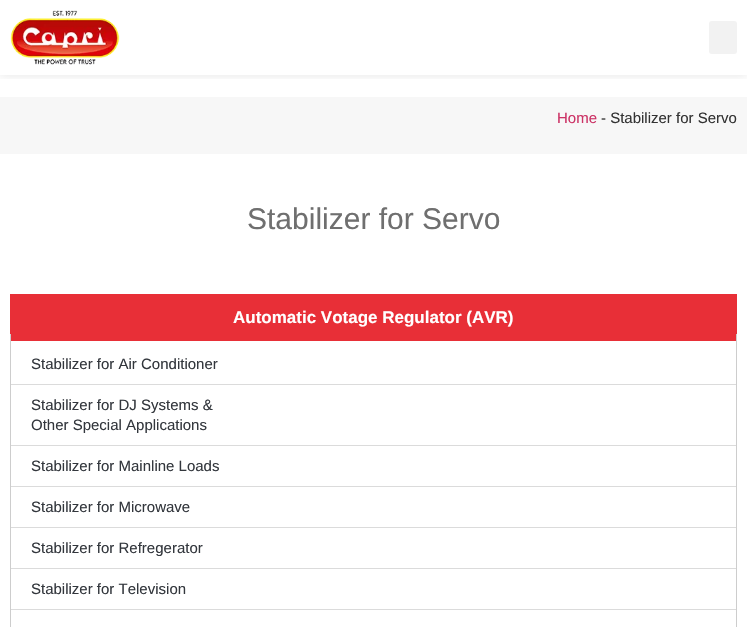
void draw(SkCanvas* canvas) {
  SkPaint paint;
  paint.setAntiAlias(true);
  auto face = [&](const char* family, int weight, float size, bool italic = false) {
    SkFontStyle style(weight, SkFontStyle::kNormal_Width,
      italic ? SkFontStyle::kItalic_Slant : SkFontStyle::kUpright_Slant);
    SkFont result(fontMgr->matchFamilyStyle(family, style), size);
    result.setSubpixel(true);
    return result;
  };
  auto paste = [&](const char* path, float x, float y, float w, float h) {
    auto image = SkImages::DeferredFromEncodedData(SkData::MakeFromFileName(path));
    canvas->drawImageRect(image, SkRect::MakeXYWH(x, y, w, h), SkSamplingOptions());
  };
  canvas->clear(0xffffffff);
  canvas->save();
  canvas->clipRect(SkRect::MakeXYWH(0, 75, 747, 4));
  paint.setColor(0x1a000000);
  paint.setMaskFilter(SkMaskFilter::MakeBlur(kNormal_SkBlurStyle, 5));
  canvas->drawRect(SkRect::MakeXYWH(0, 0, 747, 75), paint);
  paint.setMaskFilter(nullptr);
  canvas->restore();
  paste("img/1.png", 10, 10, 110, 55);
  paint.setColor(0xfff2f2f2);
  canvas->drawRoundRect(SkRect::MakeXYWH(709, 21, 28, 33), 3, 3, paint);
  {
    const struct { float x, y, w, h; SkColor color; } items[] = {
      {0, 97, 747, 57, 0xfff7f7f7},
      {10, 294, 727, 47, 0xffe82f37},
      {736, 334, 1, 293, 0xffcdcdcd},
      {10, 334, 1, 293, 0xffcdcdcd},
      {11, 384, 725, 1, 0xffdbdbdb},
      {11, 445, 725, 1, 0xffdbdbdb},
      {11, 486, 725, 1, 0xffdbdbdb},
      {11, 527, 725, 1, 0xffdbdbdb},
      {11, 568, 725, 1, 0xffdbdbdb},
      {11, 609, 725, 1, 0xffdbdbdb},
    };
    for (auto [x, y, w, h, color] : items) {
      paint.setColor(color);
      canvas->drawRect(SkRect::MakeXYWH(x, y, w, h), paint);
    }
  }
  auto f0 = face("Liberation Sans", 400, 15);
  paint.setColor(0xffcc3366);
  canvas->drawString("Home", 557, 123, f0, paint);
  paint.setColor(0xff333333);
  canvas->drawString("- Stabilizer for Servo", 601, 123, f0, paint);
  auto f1 = face("Liberation Sans", 400, 30);
  paint.setColor(0xff6f6f6f);
  canvas->drawString("Stabilizer for Servo", 247, 229, f1, paint);
  auto f2 = face("Liberation Sans", 700, 17);
  paint.setColor(0xffffffff);
  canvas->drawString("Automatic Votage Regulator (AVR)", 233, 323, f2, paint);
  paint.setColor(0xff33373d);
  {
    const struct { const char* s; float x, y; } items[] = {
      {"Stabilizer for Air Conditioner", 31, 369},
      {"Stabilizer for DJ Systems &", 31, 410},
      {"Other Special Applications", 31, 430},
      {"Stabilizer for Mainline Loads", 31, 471},
      {"Stabilizer for Microwave", 31, 512},
      {"Stabilizer for Refregerator", 31, 553},
      {"Stabilizer for Television", 31, 594},
    };
    for (auto [s, x, y] : items) {
      canvas->drawString(s, x, y, f0, paint);
    }
  }
}
